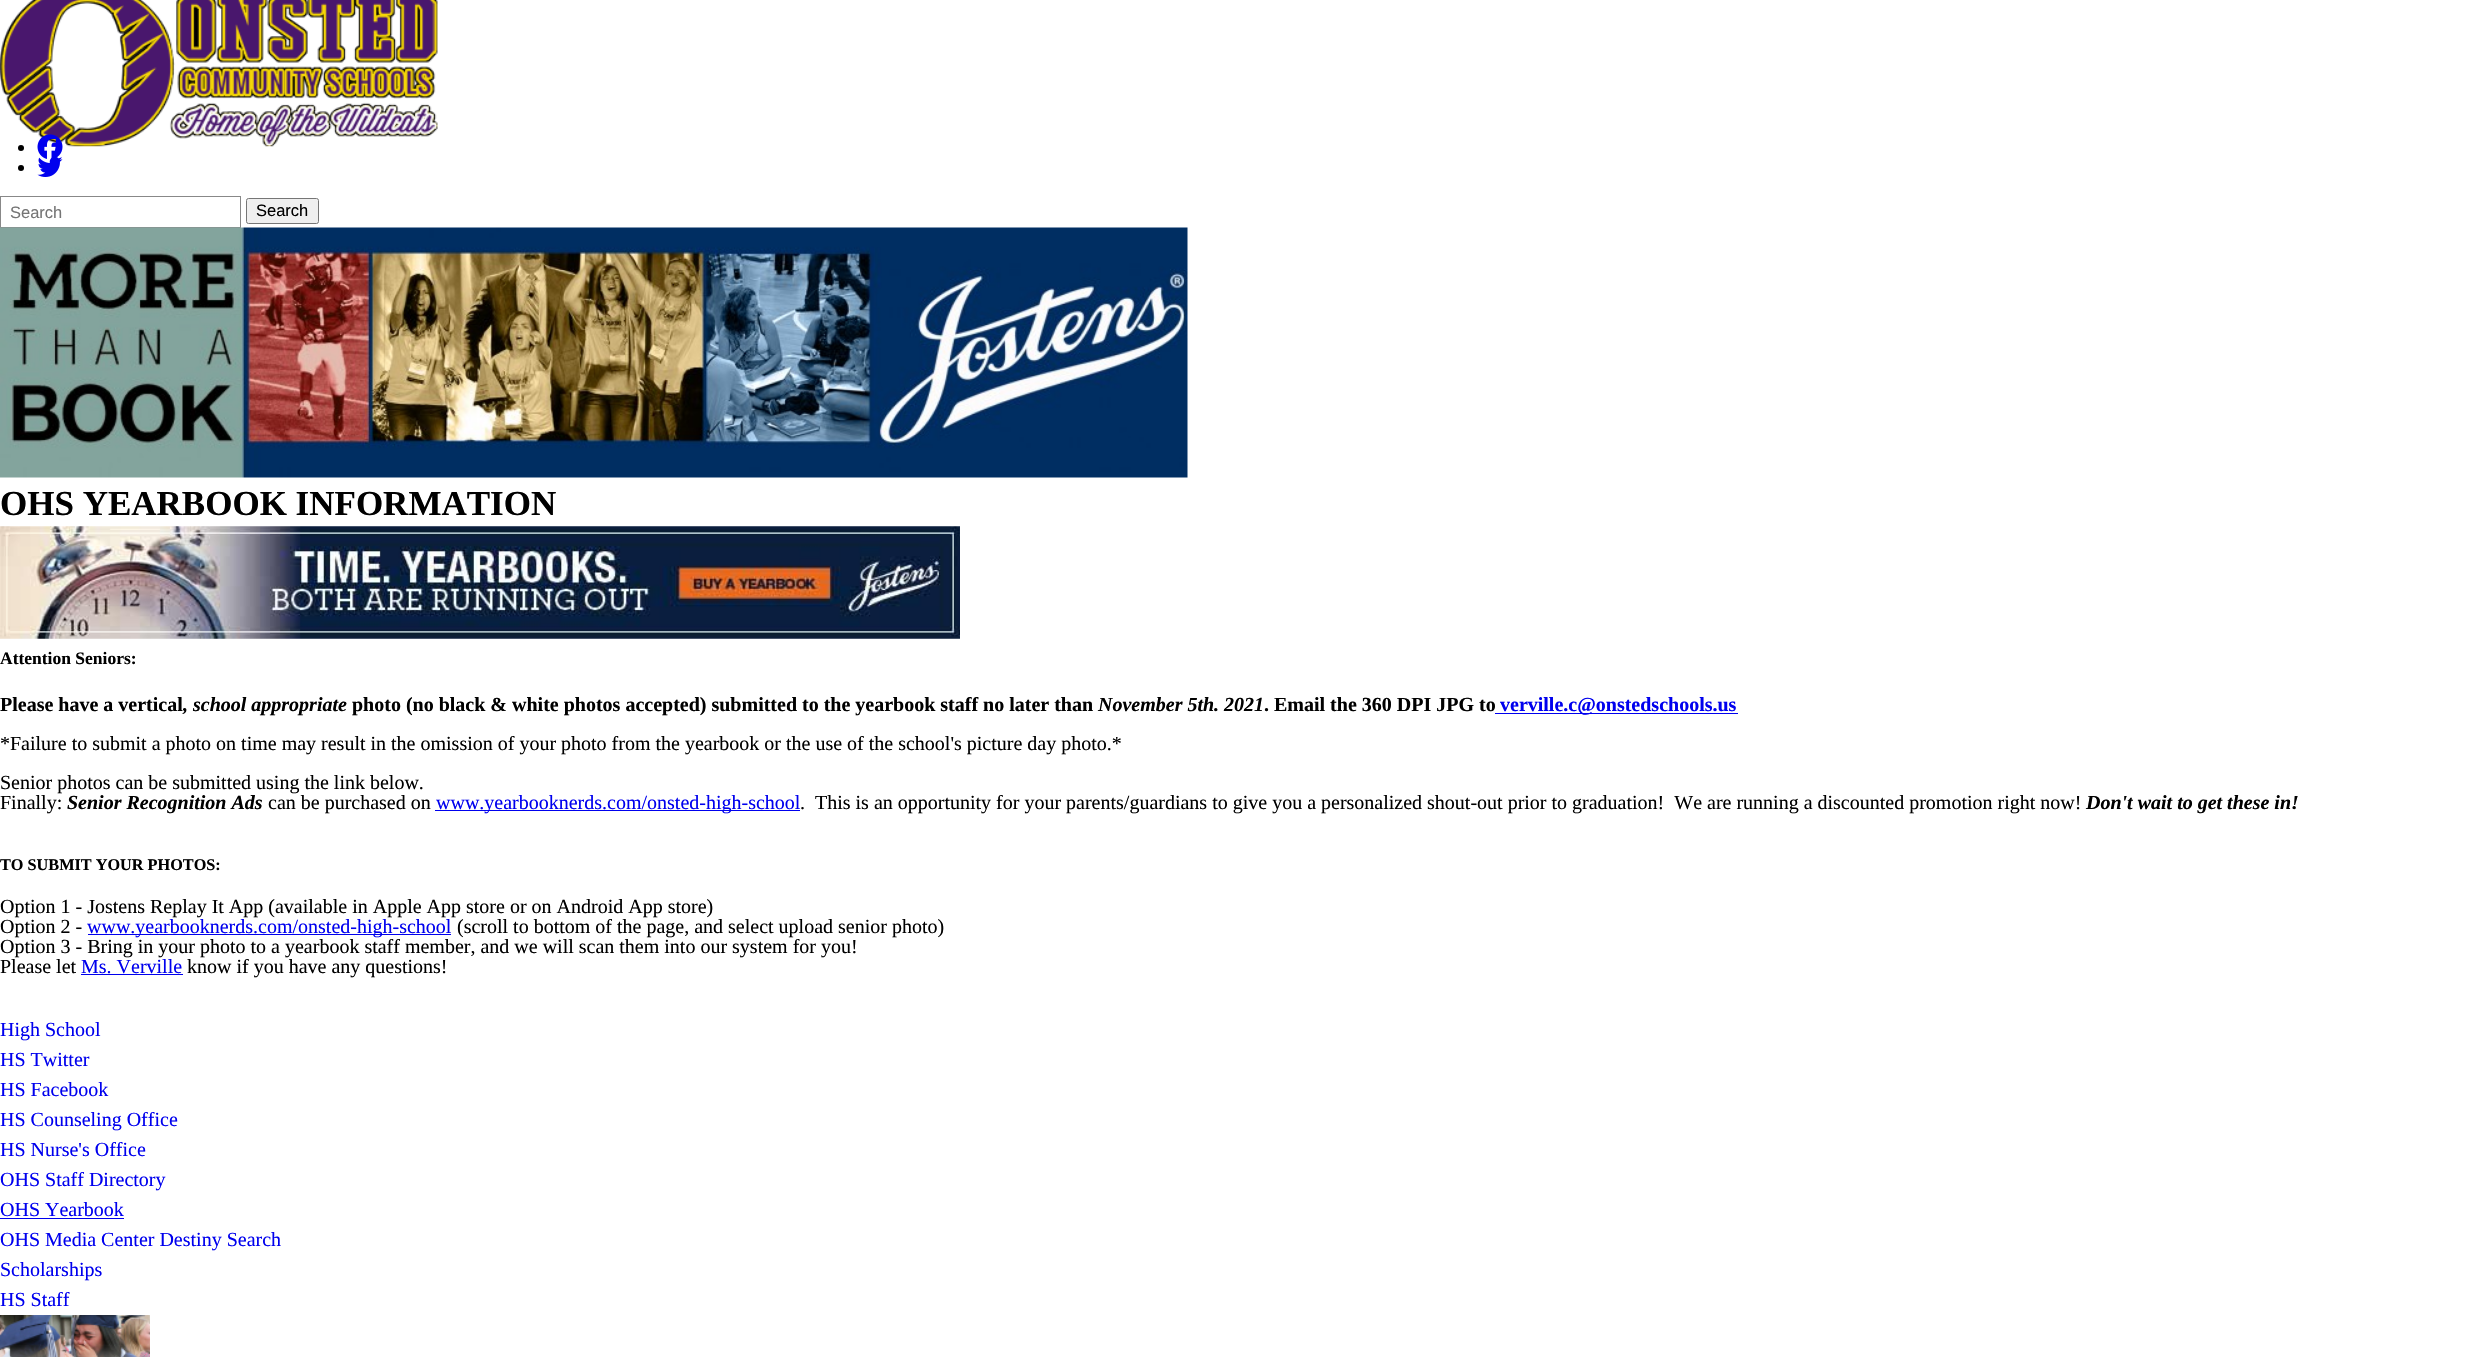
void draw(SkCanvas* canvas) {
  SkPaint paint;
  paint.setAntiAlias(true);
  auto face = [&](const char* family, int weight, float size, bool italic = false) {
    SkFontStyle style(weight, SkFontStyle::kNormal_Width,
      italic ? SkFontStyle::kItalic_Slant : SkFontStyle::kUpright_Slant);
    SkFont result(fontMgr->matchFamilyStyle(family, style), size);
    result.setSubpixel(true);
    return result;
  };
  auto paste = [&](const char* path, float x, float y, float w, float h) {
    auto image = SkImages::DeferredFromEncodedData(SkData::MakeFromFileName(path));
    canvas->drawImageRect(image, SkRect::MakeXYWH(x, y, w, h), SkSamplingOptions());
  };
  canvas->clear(0xffffffff);
  paste("img/1.png", 0, 0, 438, 147);
  paint.setColor(0xff000000);
  canvas->drawCircle(21, 148, 3, paint);
  paste("img/2.png", 37, 134, 26, 25);
  canvas->drawCircle(21, 168, 3, paint);
  paste("img/3.png", 37, 157, 26, 20);
  paint.setStroke(true);
  paint.setStrokeWidth(1);
  paint.setColor(0xff888888);
  canvas->drawRect(SkRect::MakeXYWH(0.5f, 196.5f, 240, 31), paint);
  paint.setStroke(false);
  paint.setColor(0xffefefef);
  canvas->drawRoundRect(SkRect::MakeXYWH(246.5f, 198.5f, 72, 25), 2, 2, paint);
  paint.setStroke(true);
  paint.setColor(0xff767676);
  canvas->drawRoundRect(SkRect::MakeXYWH(246.5f, 198.5f, 72, 25), 2, 2, paint);
  paste("img/4.png", 0, 227, 1188, 251);
  paste("img/5.png", 0, 526, 960, 113);
  paint.setStroke(false);
  {
    const struct { float x, y, w, h; SkColor color; } items[] = {
      {1495, 713, 243, 1, 0xff0000ee},
      {435, 810, 365, 1, 0xff0000ee},
      {88, 934, 363, 1, 0xff0000ee},
      {81, 974, 102, 1, 0xff0000ee},
      {0, 1218, 124, 1, 0xff0000ee},
    };
    for (auto [x, y, w, h, color] : items) {
      paint.setColor(color);
      canvas->drawRect(SkRect::MakeXYWH(x, y, w, h), paint);
    }
  }
  paste("img/6.png", 0, 1315, 150, 42);
  auto f0 = face("Liberation Sans", 400, 16.5f);
  paint.setColor(0xff757575);
  canvas->drawString("Search", 10, 218, f0, paint);
  paint.setColor(0xff000000);
  canvas->drawString("Search", 256, 216, f0, paint);
  auto f1 = face("Liberation Serif", 700, 35);
  canvas->drawString("OHS YEARBOOK INFORMATION", 0, 515, f1, paint);
  auto f2 = face("Liberation Serif", 700, 17.5f);
  canvas->drawString("Attention Seniors:", 0, 664, f2, paint);
  auto f3 = face("Liberation Serif", 700, 20);
  canvas->drawString("Please have a vertical", 0, 711, f3, paint);
  auto f4 = face("Liberation Serif", 700, 20, true);
  canvas->drawString(", school appropriate", 183, 711, f4, paint);
  canvas->drawString("photo (no black & white photos accepted) submitted to the yearbook staff no later than", 352, 711, f3, paint);
  canvas->drawString("November 5th. 2021", 1098, 711, f4, paint);
  canvas->drawString(". Email the 360 DPI JPG to", 1264, 711, f3, paint);
  paint.setColor(0xff0000ee);
  canvas->drawString("verville.c@onstedschools.us", 1500, 711, f3, paint);
  auto f5 = face("Liberation Serif", 400, 20);
  paint.setColor(0xff000000);
  {
    const struct { const char* s; float x, y; } items[] = {
      {"*Failure to submit a photo on time may result in the omission of your photo from the yearbook or the use of the school's picture day photo.*", 0, 750},
      {"Senior photos can be submitted using the link below.", 0, 789},
      {"Finally:", 0, 809},
    };
    for (auto [s, x, y] : items) {
      canvas->drawString(s, x, y, f5, paint);
    }
  }
  canvas->drawString("Senior Recognition Ads", 67, 809, f4, paint);
  canvas->drawString("can be purchased on", 268, 809, f5, paint);
  paint.setColor(0xff0000ee);
  canvas->drawString("www.yearbooknerds.com/onsted-high-school", 436, 809, f5, paint);
  paint.setColor(0xff000000);
  canvas->drawString(".  This is an opportunity for your parents/guardians to give you a personalized shout-out prior to graduation!  We are running a discounted promotion right now!", 800, 809, f5, paint);
  canvas->drawString("Don't wait to get these in!", 2086, 809, f4, paint);
  auto f6 = face("Liberation Serif", 700, 16.25f);
  canvas->drawString("TO SUBMIT YOUR PHOTOS:", 0, 870, f6, paint);
  canvas->drawString("Option 1 - Jostens Replay It App (available in Apple App store or on Android App store)", 0, 913, f5, paint);
  canvas->drawString("Option 2 -", 0, 933, f5, paint);
  paint.setColor(0xff0000ee);
  canvas->drawString("www.yearbooknerds.com/onsted-high-school", 87, 933, f5, paint);
  paint.setColor(0xff000000);
  {
    const struct { const char* s; float x, y; } items[] = {
      {"(scroll to bottom of the page, and select upload senior photo)", 457, 933},
      {"Option 3 - Bring in your photo to a yearbook staff member, and we will scan them into our system for you!", 0, 953},
      {"Please let", 0, 973},
    };
    for (auto [s, x, y] : items) {
      canvas->drawString(s, x, y, f5, paint);
    }
  }
  paint.setColor(0xff0000ee);
  canvas->drawString("Ms. Verville", 81, 973, f5, paint);
  paint.setColor(0xff000000);
  canvas->drawString("know if you have any questions!", 187, 973, f5, paint);
  paint.setColor(0xff0000ee);
  {
    const struct { const char* s; float x, y; } items[] = {
      {"High School", 0, 1036},
      {"HS Twitter", 0, 1066},
      {"HS Facebook", 0, 1096},
      {"HS Counseling Office", 0, 1126},
      {"HS Nurse's Office", 0, 1156},
      {"OHS Staff Directory", 0, 1186},
      {"OHS Yearbook", 0, 1216},
      {"OHS Media Center Destiny Search", 0, 1246},
      {"Scholarships", 0, 1276},
      {"HS Staff", 0, 1306},
    };
    for (auto [s, x, y] : items) {
      canvas->drawString(s, x, y, f5, paint);
    }
  }
}
